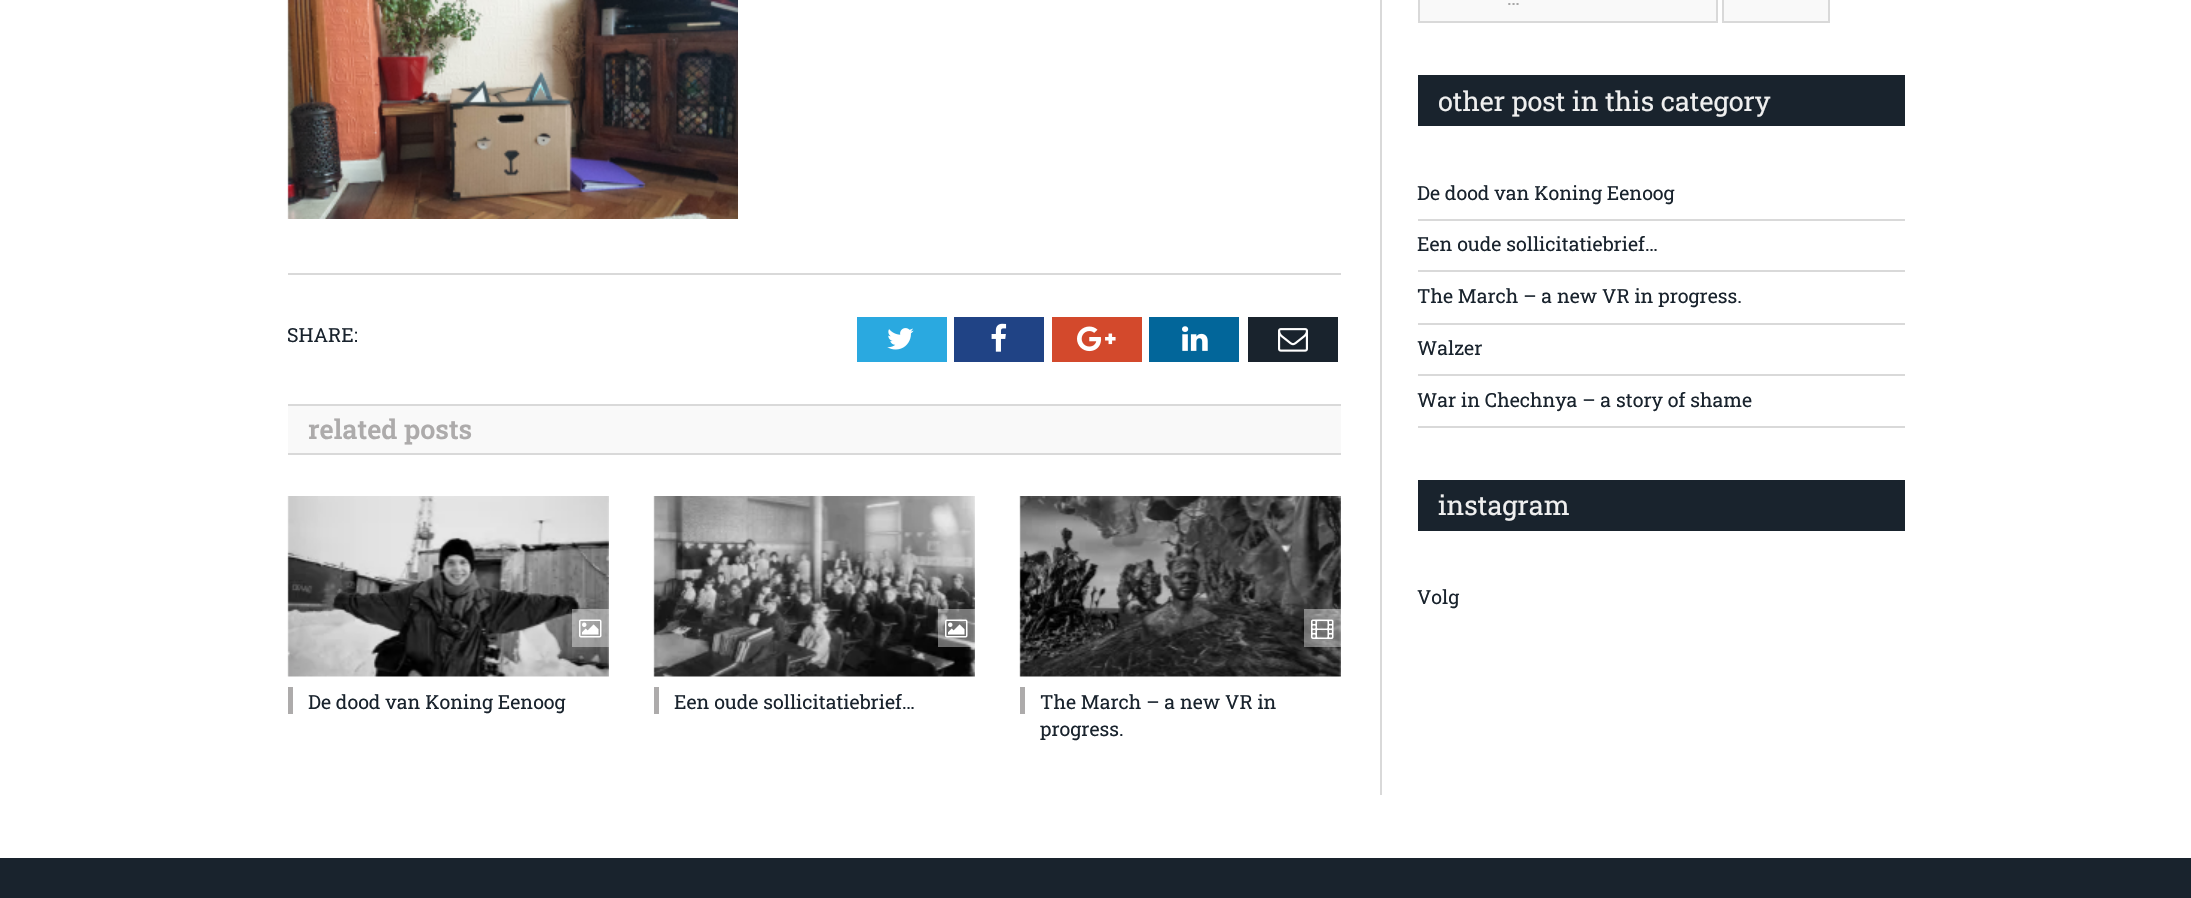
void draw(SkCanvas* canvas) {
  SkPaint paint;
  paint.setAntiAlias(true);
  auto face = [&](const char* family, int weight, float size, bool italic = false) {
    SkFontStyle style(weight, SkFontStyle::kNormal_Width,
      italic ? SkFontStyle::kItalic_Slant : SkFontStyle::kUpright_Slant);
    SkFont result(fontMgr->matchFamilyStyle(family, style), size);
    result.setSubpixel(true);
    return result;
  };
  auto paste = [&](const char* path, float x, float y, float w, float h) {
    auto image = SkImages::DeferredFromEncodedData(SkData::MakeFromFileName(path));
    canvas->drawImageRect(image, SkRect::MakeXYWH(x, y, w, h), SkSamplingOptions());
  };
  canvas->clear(0xffffffff);
  paste("img/1.png", 287, 0, 451, 219);
  paint.setColor(0xffd9d9d9);
  canvas->drawRect(SkRect::MakeXYWH(288, 273, 1053, 2), paint);
  paint.setColor(0xff2aa9e0);
  canvas->drawRect(SkRect::MakeXYWH(857, 317, 90, 45), paint);
  paste("img/2.png", 887, 328, 27, 22);
  paint.setColor(0xff204385);
  canvas->drawRect(SkRect::MakeXYWH(954, 317, 90, 45), paint);
  paste("img/3.png", 991, 323, 16, 29);
  paint.setColor(0xffd3492c);
  canvas->drawRect(SkRect::MakeXYWH(1052, 317, 90, 45), paint);
  paste("img/4.png", 1077, 326, 39, 26);
  paint.setColor(0xff02669a);
  canvas->drawRect(SkRect::MakeXYWH(1149, 317, 90, 45), paint);
  paste("img/5.png", 1182, 326, 26, 25);
  paint.setColor(0xff19232d);
  canvas->drawRect(SkRect::MakeXYWH(1248, 317, 90, 45), paint);
  paste("img/6.png", 1278, 328, 30, 24);
  {
    const struct { float x, y, w, h; SkColor color; } items[] = {
      {288, 406, 1053, 47, 0xfff9f9f9},
      {288, 404, 1053, 2, 0xffd9d9d9},
      {288, 453, 1053, 2, 0xffd9d9d9},
    };
    for (auto [x, y, w, h, color] : items) {
      paint.setColor(color);
      canvas->drawRect(SkRect::MakeXYWH(x, y, w, h), paint);
    }
  }
  paste("img/7.png", 287, 496, 322, 181);
  paint.setColor(0x66ffffff);
  canvas->drawRect(SkRect::MakeXYWH(572, 609, 37, 38), paint);
  paste("img/8.png", 579, 619, 23, 19);
  paint.setColor(0xffadabab);
  canvas->drawRect(SkRect::MakeXYWH(288, 687, 5, 27), paint);
  paste("img/9.png", 653, 496, 322, 181);
  paint.setColor(0x66ffffff);
  canvas->drawRect(SkRect::MakeXYWH(938, 609, 37, 38), paint);
  paste("img/10.png", 945, 619, 23, 19);
  paint.setColor(0xffadabab);
  canvas->drawRect(SkRect::MakeXYWH(654, 687, 5, 27), paint);
  paste("img/11.png", 1019, 496, 322, 181);
  paint.setColor(0x66ffffff);
  canvas->drawRect(SkRect::MakeXYWH(1304, 609, 37, 38), paint);
  paste("img/12.png", 1311, 619, 23, 20);
  paint.setColor(0xffadabab);
  canvas->drawRect(SkRect::MakeXYWH(1020, 687, 5, 27), paint);
  paint.setColor(0xffd9d9d9);
  canvas->drawRect(SkRect::MakeXYWH(1380, 0, 2, 795), paint);
  paint.setColor(0xfff9f9f9);
  canvas->drawRect(SkRect::MakeXYWH(1419, -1, 298, 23), paint);
  paint.setStroke(true);
  paint.setStrokeWidth(2);
  paint.setColor(0xffd9d9d9);
  canvas->drawRect(SkRect::MakeXYWH(1419, -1, 298, 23), paint);
  paint.setStroke(false);
  paint.setColor(0xfff9f9f9);
  canvas->drawRect(SkRect::MakeXYWH(1723, -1, 106, 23), paint);
  paint.setStroke(true);
  paint.setColor(0xffd9d9d9);
  canvas->drawRect(SkRect::MakeXYWH(1723, -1, 106, 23), paint);
  paint.setStroke(false);
  {
    const struct { float x, y, w, h; SkColor color; } items[] = {
      {1418, 75, 487, 51, 0xff19232d},
      {1418, 219, 487, 2, 0xffd9d9d9},
      {1418, 270, 487, 2, 0xffd9d9d9},
      {1418, 323, 487, 2, 0xffd9d9d9},
      {1418, 374, 487, 2, 0xffd9d9d9},
      {1418, 426, 487, 2, 0xffd9d9d9},
      {1418, 480, 487, 51, 0xff19232d},
      {0, 858, 2191, 40, 0xff19232d},
    };
    for (auto [x, y, w, h, color] : items) {
      paint.setColor(color);
      canvas->drawRect(SkRect::MakeXYWH(x, y, w, h), paint);
    }
  }
  auto f0 = face("Roboto Slab", 400, 19.5f);
  canvas->drawString("SHARE:", 287, 342, f0, paint);
  auto f1 = face("Roboto Slab", 600, 27);
  paint.setColor(0xffadabab);
  canvas->drawString("related posts", 308, 439, f1, paint);
  paint.setColor(0xff19232d);
  {
    const struct { const char* s; float x, y; } items[] = {
      {"De dood van Koning Eenoog", 308, 709},
      {"Een oude sollicitatiebrief…", 674, 709},
      {"The March – a new VR in", 1040, 709},
      {"progress.", 1040, 736},
    };
    for (auto [s, x, y] : items) {
      canvas->drawString(s, x, y, f0, paint);
    }
  }
  paint.setColor(0xffa6a6a6);
  canvas->drawString("…", 1507, 5, f0, paint);
  auto f2 = face("Roboto Slab", 400, 27);
  paint.setColor(0xffefefef);
  canvas->drawString("other post in this category", 1438, 111, f2, paint);
  paint.setColor(0xff19232d);
  {
    const struct { const char* s; float x, y; } items[] = {
      {"De dood van Koning Eenoog", 1417, 200},
      {"Een oude sollicitatiebrief…", 1417, 251},
      {"The March – a new VR in progress.", 1417, 303},
      {"Walzer", 1417, 355},
      {"War in Chechnya – a story of shame", 1417, 407},
    };
    for (auto [s, x, y] : items) {
      canvas->drawString(s, x, y, f0, paint);
    }
  }
  paint.setColor(0xffefefef);
  canvas->drawString("instagram", 1438, 515, f2, paint);
  paint.setColor(0xff19232d);
  canvas->drawString("Volg", 1417, 604, f0, paint);
}
